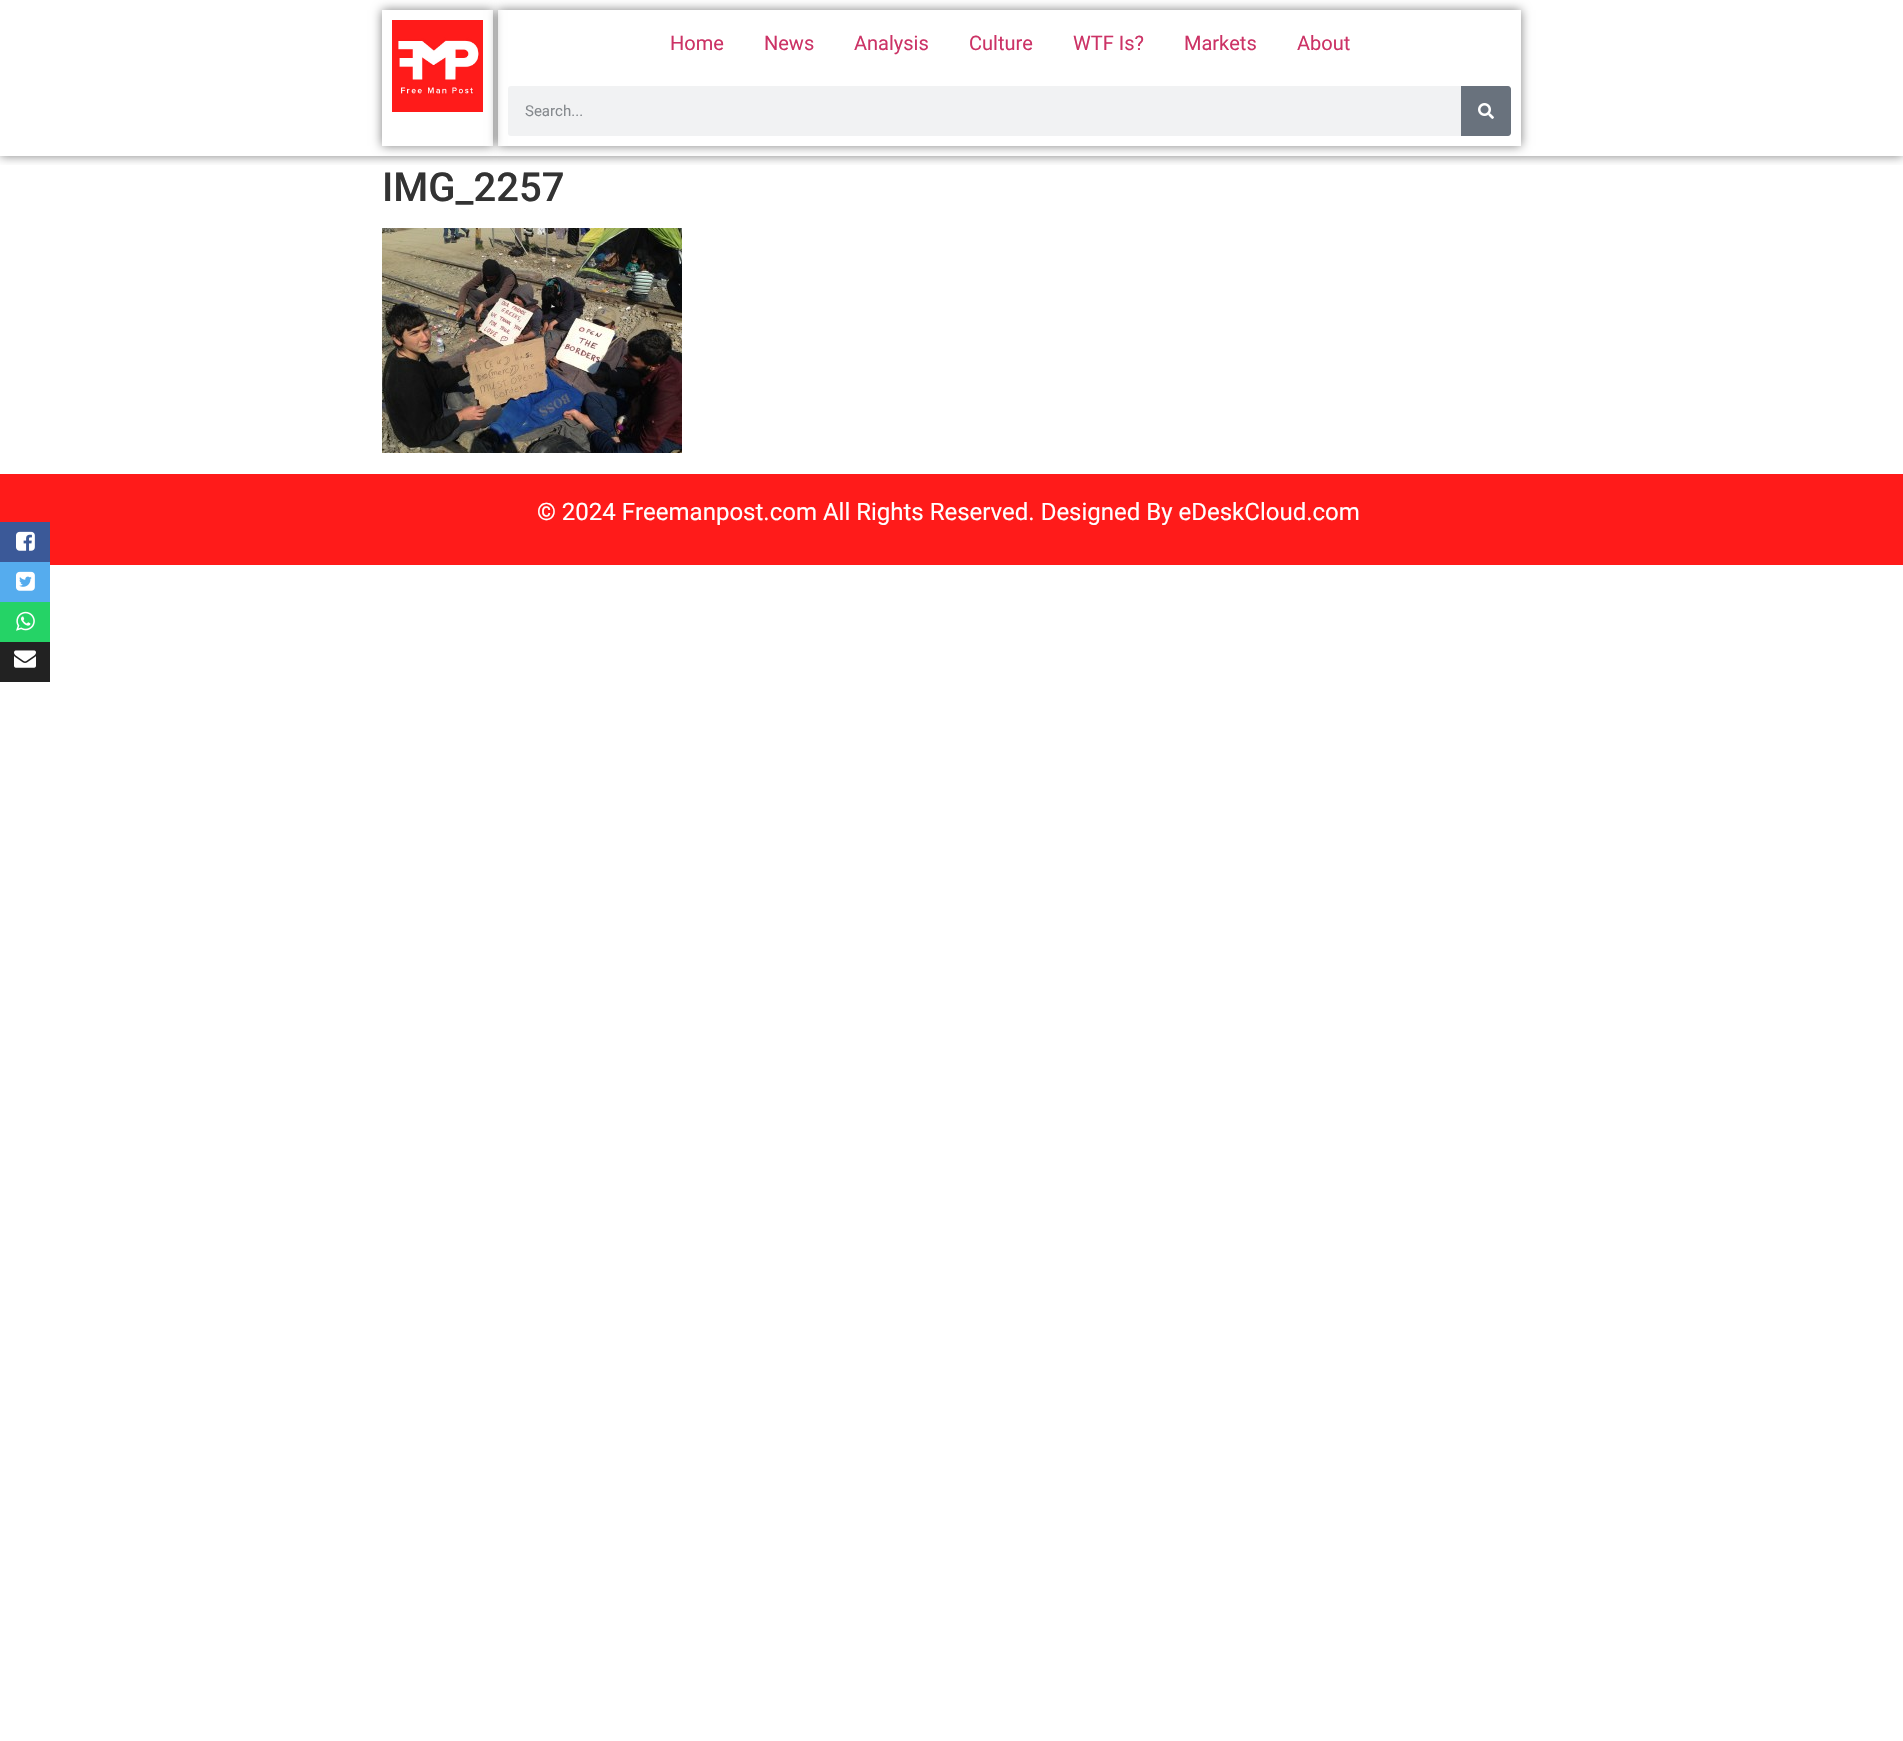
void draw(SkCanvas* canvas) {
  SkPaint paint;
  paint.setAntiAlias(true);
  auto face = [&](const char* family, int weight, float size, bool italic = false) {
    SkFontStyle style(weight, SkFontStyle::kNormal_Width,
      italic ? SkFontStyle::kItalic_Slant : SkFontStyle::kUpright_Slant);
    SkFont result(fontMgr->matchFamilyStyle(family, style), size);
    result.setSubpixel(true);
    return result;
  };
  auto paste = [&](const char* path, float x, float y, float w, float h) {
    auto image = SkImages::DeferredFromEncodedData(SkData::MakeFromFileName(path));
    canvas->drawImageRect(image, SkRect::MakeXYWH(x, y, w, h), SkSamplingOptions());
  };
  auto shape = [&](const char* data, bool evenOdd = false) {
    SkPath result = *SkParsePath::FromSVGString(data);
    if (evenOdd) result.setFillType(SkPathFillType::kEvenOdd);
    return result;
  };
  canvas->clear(0xffffffff);
  canvas->save();
  canvas->clipRect(SkRect::MakeXYWH(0, 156, 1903, 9));
  paint.setColor(0x80000000);
  paint.setMaskFilter(SkMaskFilter::MakeBlur(kNormal_SkBlurStyle, 5));
  canvas->drawRect(SkRect::MakeXYWH(0, 0, 1903, 156), paint);
  paint.setMaskFilter(nullptr);
  canvas->restore();
  canvas->save();
  canvas->clipPath(shape("M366 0H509V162H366ZM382 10H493V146H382Z", true), true);
  paint.setMaskFilter(SkMaskFilter::MakeBlur(kNormal_SkBlurStyle, 5));
  canvas->drawRect(SkRect::MakeXYWH(382, 10, 111, 136), paint);
  paint.setMaskFilter(nullptr);
  canvas->restore();
  paste("img/1.png", 392, 20, 91, 92);
  canvas->save();
  canvas->clipPath(shape("M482 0H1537V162H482ZM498 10H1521V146H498Z", true), true);
  paint.setMaskFilter(SkMaskFilter::MakeBlur(kNormal_SkBlurStyle, 5));
  canvas->drawRect(SkRect::MakeXYWH(498, 10, 1023, 136), paint);
  paint.setMaskFilter(nullptr);
  canvas->restore();
  paint.setColor(0xfff1f2f3);
  canvas->drawRoundRect(SkRect::MakeXYWH(508, 86, 1003, 50), 3, 3, paint);
  paint.setColor(0xff69727d);
  canvas->drawPath(shape("M1461 86H1508C1509.5 86 1511 87.5 1511 89V133C1511 134.5 1509.5 136 1508 136H1461Z"), paint);
  paste("img/2.png", 1478, 103, 16, 16);
  paste("img/3.png", 382, 228, 300, 225);
  paint.setColor(0xffff1b1a);
  canvas->drawRect(SkRect::MakeXYWH(0, 474, 1903, 91), paint);
  paint.setColor(0xff3b5998);
  canvas->drawRect(SkRect::MakeXYWH(0, 522, 50, 40), paint);
  paste("img/4.png", 16, 531, 19, 20);
  paint.setColor(0xff55acee);
  canvas->drawRect(SkRect::MakeXYWH(0, 562, 50, 40), paint);
  paste("img/5.png", 16, 571, 19, 20);
  paint.setColor(0xff25d366);
  canvas->drawRect(SkRect::MakeXYWH(0, 602, 50, 40), paint);
  paste("img/6.png", 16, 611, 19, 20);
  paint.setColor(0xff222222);
  canvas->drawRect(SkRect::MakeXYWH(0, 642, 50, 40), paint);
  paste("img/7.png", 14, 650, 22, 18);
  auto f0 = face("Roboto", 400, 20);
  paint.setColor(0xffcc3366);
  {
    const struct { const char* s; float x, y; } items[] = {
      {"Home", 670, 50},
      {"News", 764, 50},
      {"Analysis", 854, 50},
      {"Culture", 969, 50},
      {"WTF Is?", 1073, 50},
      {"Markets", 1184, 50},
      {"About", 1297, 50},
    };
    for (auto [s, x, y] : items) {
      canvas->drawString(s, x, y, f0, paint);
    }
  }
  auto f1 = face("Roboto", 400, 15);
  paint.setColor(0xff868a8e);
  canvas->drawString("Search...", 525, 116, f1, paint);
  auto f2 = face("Roboto", 500, 40);
  paint.setColor(0xff333333);
  canvas->drawString("IMG_2257", 382, 201, f2, paint);
  auto f3 = face("Roboto", 400, 24);
  paint.setColor(0xffffffff);
  canvas->drawString("© 2024 Freemanpost.com All Rights Reserved. Designed By eDeskCloud.com", 537, 520, f3, paint);
}
